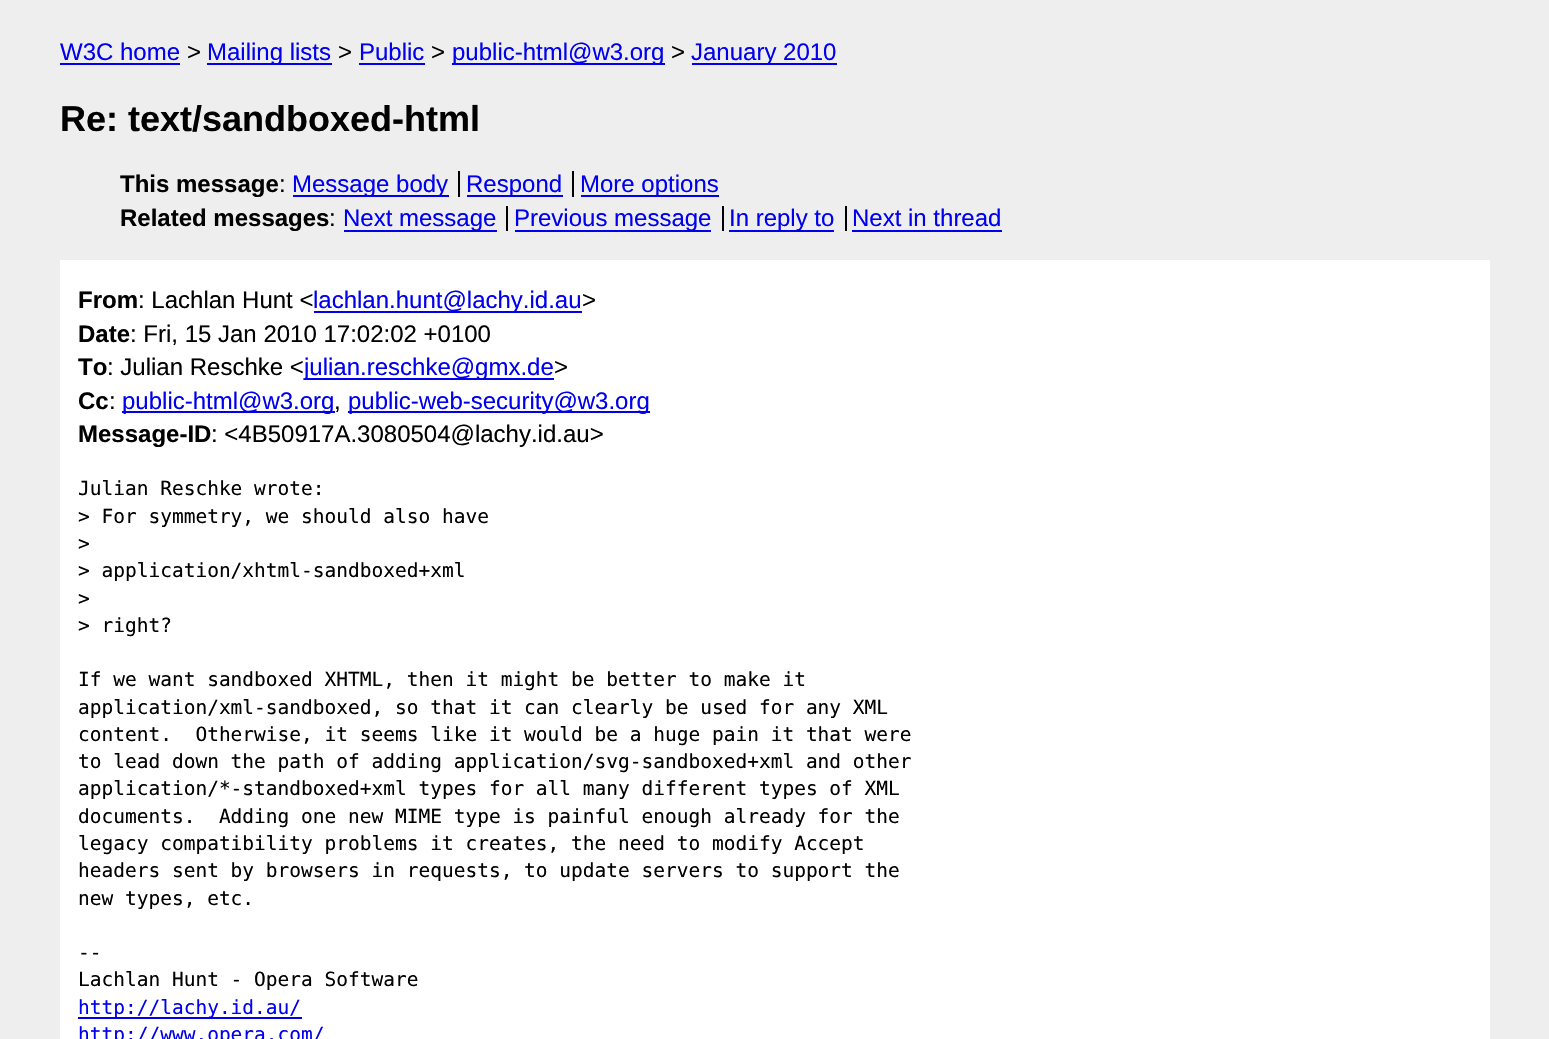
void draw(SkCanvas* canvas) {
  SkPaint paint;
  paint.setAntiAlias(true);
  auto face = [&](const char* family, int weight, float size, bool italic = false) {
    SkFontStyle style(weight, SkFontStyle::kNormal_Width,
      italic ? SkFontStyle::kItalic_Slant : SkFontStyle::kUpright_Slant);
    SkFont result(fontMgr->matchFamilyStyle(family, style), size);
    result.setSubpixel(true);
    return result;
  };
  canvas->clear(0xffeeeeee);
  {
    const struct { float x, y, w, h; SkColor color; } items[] = {
      {60, 63, 120, 2, 0xff0000ee},
      {207, 63, 125, 2, 0xff0000ee},
      {359, 63, 66, 2, 0xff0000ee},
      {452, 63, 213, 2, 0xff0000ee},
      {692, 63, 145, 2, 0xff0000ee},
      {293, 195, 156, 2, 0xff0000ee},
      {458, 171, 2, 26, 0xff000000},
      {467, 195, 96, 2, 0xff0000ee},
      {572, 171, 2, 26, 0xff000000},
      {581, 195, 138, 2, 0xff0000ee},
      {344, 230, 153, 2, 0xff0000ee},
      {506, 206, 2, 25, 0xff000000},
      {515, 230, 196, 2, 0xff0000ee},
      {722, 206, 2, 25, 0xff000000},
      {729, 230, 105, 2, 0xff0000ee},
      {845, 206, 2, 25, 0xff000000},
      {852, 230, 150, 2, 0xff0000ee},
      {60, 260, 1430, 779, 0xffffffff},
      {314, 311, 268, 2, 0xff0000ee},
      {305, 378, 249, 2, 0xff0000ee},
      {122, 411, 213, 2, 0xff0000ee},
      {348, 411, 302, 2, 0xff0000ee},
      {78, 1017, 224, 2, 0xff0000ee},
    };
    for (auto [x, y, w, h, color] : items) {
      paint.setColor(color);
      canvas->drawRect(SkRect::MakeXYWH(x, y, w, h), paint);
    }
  }
  auto f0 = face("Liberation Sans", 400, 24);
  canvas->drawString("W3C home", 60, 60, f0, paint);
  paint.setColor(0xff000000);
  canvas->drawString(">", 187, 60, f0, paint);
  paint.setColor(0xff0000ee);
  canvas->drawString("Mailing lists", 207, 60, f0, paint);
  paint.setColor(0xff000000);
  canvas->drawString(">", 338, 60, f0, paint);
  paint.setColor(0xff0000ee);
  canvas->drawString("Public", 359, 60, f0, paint);
  paint.setColor(0xff000000);
  canvas->drawString(">", 431, 60, f0, paint);
  paint.setColor(0xff0000ee);
  canvas->drawString("public-html@w3.org", 452, 60, f0, paint);
  paint.setColor(0xff000000);
  canvas->drawString(">", 671, 60, f0, paint);
  paint.setColor(0xff0000ee);
  canvas->drawString("January 2010", 691, 60, f0, paint);
  auto f1 = face("Liberation Sans", 700, 36);
  paint.setColor(0xff000000);
  canvas->drawString("Re: text/sandboxed-html", 60, 131, f1, paint);
  auto f2 = face("Liberation Sans", 700, 24);
  canvas->drawString("This message", 120, 192, f2, paint);
  canvas->drawString(":", 279, 192, f0, paint);
  paint.setColor(0xff0000ee);
  {
    const struct { const char* s; float x, y; } items[] = {
      {"Message body", 292, 192},
      {"Respond", 466, 192},
      {"More options", 580, 192},
    };
    for (auto [s, x, y] : items) {
      canvas->drawString(s, x, y, f0, paint);
    }
  }
  paint.setColor(0xff000000);
  canvas->drawString("Related messages", 120, 226, f2, paint);
  canvas->drawString(":", 329, 226, f0, paint);
  paint.setColor(0xff0000ee);
  {
    const struct { const char* s; float x, y; } items[] = {
      {"Next message", 343, 226},
      {"Previous message", 514, 226},
      {"In reply to", 729, 226},
      {"Next in thread", 852, 226},
    };
    for (auto [s, x, y] : items) {
      canvas->drawString(s, x, y, f0, paint);
    }
  }
  paint.setColor(0xff000000);
  canvas->drawString("From", 78, 308, f2, paint);
  canvas->drawString(": Lachlan Hunt <", 138, 308, f0, paint);
  paint.setColor(0xff0000ee);
  canvas->drawString("lachlan.hunt@lachy.id.au", 313, 308, f0, paint);
  paint.setColor(0xff000000);
  canvas->drawString(">", 582, 308, f0, paint);
  canvas->drawString("Date", 78, 342, f2, paint);
  canvas->drawString(": Fri, 15 Jan 2010 17:02:02 +0100", 130, 342, f0, paint);
  canvas->drawString("To", 78, 375, f2, paint);
  canvas->drawString(": Julian Reschke <", 107, 375, f0, paint);
  paint.setColor(0xff0000ee);
  canvas->drawString("julian.reschke@gmx.de", 304, 375, f0, paint);
  paint.setColor(0xff000000);
  canvas->drawString(">", 554, 375, f0, paint);
  canvas->drawString("Cc", 78, 409, f2, paint);
  canvas->drawString(":", 109, 409, f0, paint);
  paint.setColor(0xff0000ee);
  canvas->drawString("public-html@w3.org", 122, 409, f0, paint);
  paint.setColor(0xff000000);
  canvas->drawString(",", 334, 409, f0, paint);
  paint.setColor(0xff0000ee);
  canvas->drawString("public-web-security@w3.org", 348, 409, f0, paint);
  paint.setColor(0xff000000);
  canvas->drawString("Message-ID", 78, 442, f2, paint);
  canvas->drawString(": <4B50917A.3080504@lachy.id.au>", 211, 442, f0, paint);
  auto f3 = face("DejaVu Sans Mono", 400, 19.5f);
  {
    const struct { const char* s; float x, y; } items[] = {
      {"Julian Reschke wrote:", 78, 495},
      {"> For symmetry, we should also have", 78, 523},
      {">", 78, 550},
      {"> application/xhtml-sandboxed+xml", 78, 577},
      {">", 78, 605},
      {"> right?", 78, 632},
      {"If we want sandboxed XHTML, then it might be better to make it", 78, 686},
      {"application/xml-sandboxed, so that it can clearly be used for any XML", 78, 714},
      {"content.  Otherwise, it seems like it would be a huge pain it that were", 78, 741},
      {"to lead down the path of adding application/svg-sandboxed+xml and other", 78, 768},
      {"application/*-standboxed+xml types for all many different types of XML", 78, 795},
      {"documents.  Adding one new MIME type is painful enough already for the", 78, 823},
      {"legacy compatibility problems it creates, the need to modify Accept", 78, 850},
      {"headers sent by browsers in requests, to update servers to support the", 78, 877},
      {"new types, etc.", 78, 905},
      {"--", 78, 959},
      {"Lachlan Hunt - Opera Software", 78, 986},
    };
    for (auto [s, x, y] : items) {
      canvas->drawString(s, x, y, f3, paint);
    }
  }
  paint.setColor(0xff0000ee);
  canvas->drawString("http://lachy.id.au/", 78, 1014, f3, paint);
  canvas->drawString("http://www.opera.com/", 78, 1041, f3, paint);
}
